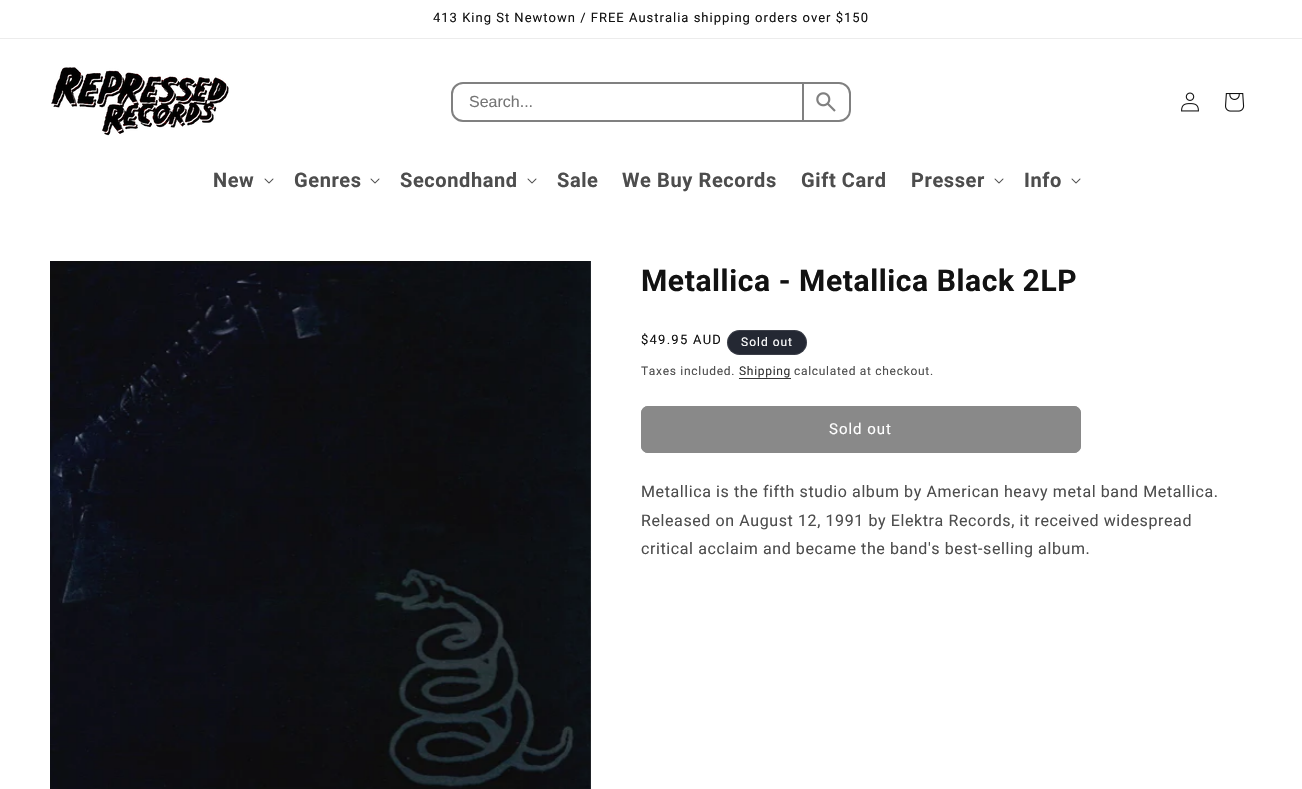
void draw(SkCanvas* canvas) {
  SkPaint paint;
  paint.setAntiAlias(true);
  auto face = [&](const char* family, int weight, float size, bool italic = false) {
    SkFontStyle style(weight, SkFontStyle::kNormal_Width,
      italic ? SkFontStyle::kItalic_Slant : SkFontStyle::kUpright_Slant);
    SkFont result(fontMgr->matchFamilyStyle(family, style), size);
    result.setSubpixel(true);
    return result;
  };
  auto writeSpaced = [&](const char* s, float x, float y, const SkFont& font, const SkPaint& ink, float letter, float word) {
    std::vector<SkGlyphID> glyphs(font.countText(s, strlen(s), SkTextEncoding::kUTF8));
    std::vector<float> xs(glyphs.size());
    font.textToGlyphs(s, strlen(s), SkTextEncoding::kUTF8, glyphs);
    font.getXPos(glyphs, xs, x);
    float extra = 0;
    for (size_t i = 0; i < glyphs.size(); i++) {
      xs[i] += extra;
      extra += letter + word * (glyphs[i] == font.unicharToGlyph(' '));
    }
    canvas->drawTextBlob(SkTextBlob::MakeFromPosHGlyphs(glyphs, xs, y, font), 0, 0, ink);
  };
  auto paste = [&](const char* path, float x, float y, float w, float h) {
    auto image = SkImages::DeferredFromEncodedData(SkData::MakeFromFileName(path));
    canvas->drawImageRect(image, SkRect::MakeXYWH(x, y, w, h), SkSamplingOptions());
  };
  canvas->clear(0xffffffff);
  paint.setColor(0xffececec);
  canvas->drawRect(SkRect::MakeXYWH(0, 38, 1302, 1), paint);
  paste("img/1.png", 51, 67, 178, 69);
  paint.setStroke(true);
  paint.setStrokeWidth(2);
  paint.setColor(0xff808080);
  canvas->drawRoundRect(SkRect::MakeXYWH(452, 83, 398, 38), 11, 11, paint);
  paint.setStroke(false);
  canvas->drawRect(SkRect::MakeXYWH(802, 84, 2, 36), paint);
  paste("img/2.png", 816, 92, 20, 20);
  paste("img/3.png", 1181, 92, 18, 20);
  paste("img/4.png", 1225, 93, 20, 19);
  paste("img/5.png", 264, 178, 10, 6);
  paste("img/5.png", 370, 178, 10, 6);
  paste("img/5.png", 527, 178, 10, 6);
  paste("img/5.png", 994, 178, 10, 6);
  paste("img/5.png", 1071, 178, 10, 6);
  paste("img/6.png", 50, 261, 541, 528);
  paint.setColor(0xff242833);
  canvas->drawRoundRect(SkRect::MakeXYWH(727, 330, 80, 25), 12.5f, 12.5f, paint);
  paint.setStroke(true);
  paint.setStrokeWidth(1);
  paint.setColor(0x1affffff);
  canvas->drawRoundRect(SkRect::MakeXYWH(727.5f, 330.5f, 79, 24), 12, 12, paint);
  paint.setStroke(false);
  paint.setColor(0xff363636);
  canvas->drawRect(SkRect::MakeXYWH(739, 378, 52, 1), paint);
  paint.setColor(0xff898989);
  canvas->drawRoundRect(SkRect::MakeXYWH(641, 406, 440, 47), 7, 7, paint);
  paint.setStroke(true);
  canvas->drawRoundRect(SkRect::MakeXYWH(641.5f, 406.5f, 439, 46), 6.5f, 6.5f, paint);
  auto f0 = face("Roboto", 400, 13);
  paint.setStroke(false);
  paint.setColor(0xff121212);
  writeSpaced("413 King St Newtown / FREE Australia shipping orders over $150", 433, 22, f0, paint, 1, 0);
  auto f1 = face("Liberation Sans", 400, 16);
  paint.setColor(0xff757575);
  canvas->drawString("Search...", 469, 107, f1, paint);
  auto f2 = face("Roboto", 700, 20);
  paint.setColor(0xff4d4d4d);
  {
    const struct { const char* s; float x, y; } items[] = {
      {"New", 213, 187},
      {"Genres", 294, 187},
      {"Secondhand", 400, 187},
      {"Sale", 557, 187},
      {"We Buy Records", 622, 187},
      {"Gift Card", 801, 187},
      {"Presser", 911, 187},
      {"Info", 1024, 187},
    };
    for (auto [s, x, y] : items) {
      writeSpaced(s, x, y, f2, paint, 0.6f, 0);
    }
  }
  auto f3 = face("Roboto", 700, 30);
  paint.setColor(0xff121212);
  writeSpaced("Metallica - Metallica Black 2LP", 641, 291, f3, paint, 0.6f, 0);
  writeSpaced("$49.95 AUD", 641, 344, f0, paint, 1.25f, 0);
  auto f4 = face("Roboto", 400, 12);
  paint.setColor(0xffffffff);
  writeSpaced("Sold out", 741, 346, f4, paint, 1, 0);
  paint.setColor(0xff4d4d4d);
  writeSpaced("Taxes included.", 641, 375, f4, paint, 0.7f, 0);
  paint.setColor(0xff363636);
  writeSpaced("Shipping", 739, 375, f4, paint, 0.7f, 0);
  paint.setColor(0xff4d4d4d);
  writeSpaced("calculated at checkout.", 794, 375, f4, paint, 0.7f, 0);
  auto f5 = face("Roboto", 400, 15);
  paint.setColor(0xffffffff);
  writeSpaced("Sold out", 829, 434, f5, paint, 1, 0);
  auto f6 = face("Roboto", 400, 16);
  paint.setColor(0xff4d4d4d);
  {
    const struct { const char* s; float x, y; } items[] = {
      {"Metallica is the fifth studio album by American heavy metal band Metallica.", 641, 497},
      {"Released on August 12, 1991 by Elektra Records, it received widespread", 641, 526},
      {"critical acclaim and became the band's best-selling album.", 641, 554},
    };
    for (auto [s, x, y] : items) {
      writeSpaced(s, x, y, f6, paint, 0.6f, 0);
    }
  }
}
